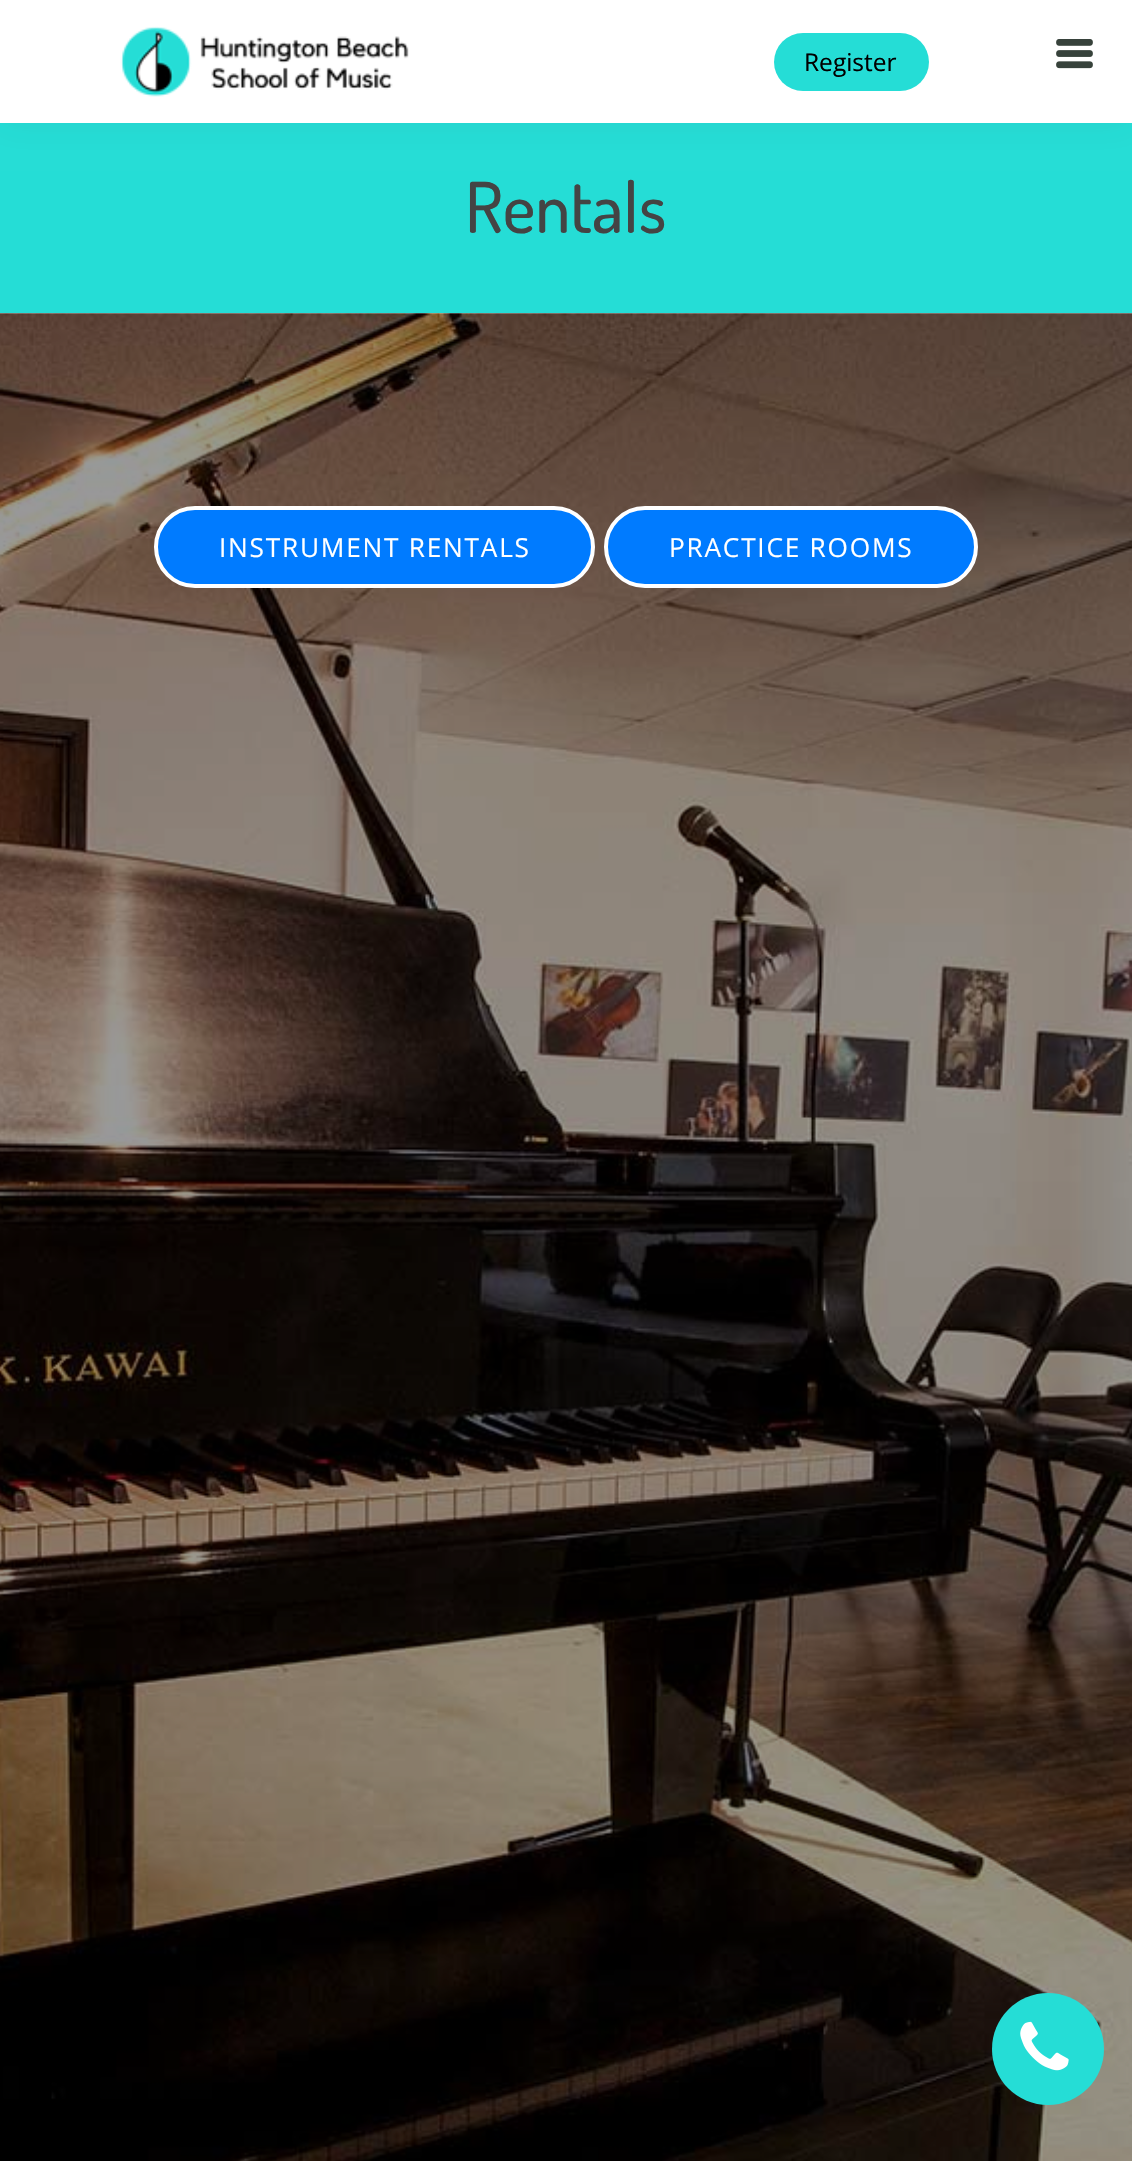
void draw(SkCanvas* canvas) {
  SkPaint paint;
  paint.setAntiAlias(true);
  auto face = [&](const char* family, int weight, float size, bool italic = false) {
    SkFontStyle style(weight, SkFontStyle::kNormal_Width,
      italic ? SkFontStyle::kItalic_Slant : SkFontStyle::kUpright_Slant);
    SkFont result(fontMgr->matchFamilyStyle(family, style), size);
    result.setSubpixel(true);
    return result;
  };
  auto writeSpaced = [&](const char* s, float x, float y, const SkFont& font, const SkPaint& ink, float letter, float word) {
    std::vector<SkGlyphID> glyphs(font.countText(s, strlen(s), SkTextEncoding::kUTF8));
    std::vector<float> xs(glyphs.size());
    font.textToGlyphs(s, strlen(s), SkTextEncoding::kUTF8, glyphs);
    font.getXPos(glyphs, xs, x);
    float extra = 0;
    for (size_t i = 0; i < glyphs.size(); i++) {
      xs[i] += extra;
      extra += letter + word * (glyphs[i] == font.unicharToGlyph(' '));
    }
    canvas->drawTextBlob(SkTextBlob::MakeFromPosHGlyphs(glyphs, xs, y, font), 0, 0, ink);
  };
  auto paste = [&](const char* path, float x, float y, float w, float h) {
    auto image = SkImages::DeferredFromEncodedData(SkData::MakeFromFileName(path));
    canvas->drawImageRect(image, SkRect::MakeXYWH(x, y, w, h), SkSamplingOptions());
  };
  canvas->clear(0xffffffff);
  paint.setColor(0xff25ddd6);
  canvas->drawRect(SkRect::MakeXYWH(0, 123, 1132, 190), paint);
  paint.setColor(0x1437423b);
  paint.setMaskFilter(SkMaskFilter::MakeBlur(kNormal_SkBlurStyle, 16));
  canvas->drawRect(SkRect::MakeXYWH(0, 0, 1132, 123), paint);
  paint.setMaskFilter(nullptr);
  paint.setColor(0xffffffff);
  canvas->drawRect(SkRect::MakeXYWH(0, 0, 1132, 123), paint);
  paste("img/1.png", 120, 26, 289, 71);
  paint.setColor(0xff25ddd6);
  canvas->drawRoundRect(SkRect::MakeXYWH(774, 33, 155, 58), 29, 29, paint);
  paste("img/2.png", 1056, 39, 37, 30);
  paste("img/3.png", 0, 313, 1132, 1848);
  paint.setColor(0xff007bff);
  canvas->drawRoundRect(SkRect::MakeXYWH(156, 508, 437, 78), 39, 39, paint);
  paint.setStroke(true);
  paint.setStrokeWidth(4);
  paint.setColor(0xffffffff);
  canvas->drawRoundRect(SkRect::MakeXYWH(156, 508, 437, 78), 39, 39, paint);
  paint.setStroke(false);
  paint.setColor(0xff007bff);
  canvas->drawRoundRect(SkRect::MakeXYWH(606, 508, 370, 78), 39, 39, paint);
  paint.setStroke(true);
  paint.setColor(0xffffffff);
  canvas->drawRoundRect(SkRect::MakeXYWH(606, 508, 370, 78), 39, 39, paint);
  paint.setStroke(false);
  paint.setColor(0xff25ddd6);
  canvas->drawCircle(1048, 2049, 56, paint);
  paste("img/4.png", 1020, 2021, 49, 50);
  auto f0 = face("Open Sans", 400, 24.5f);
  paint.setColor(0xff000000);
  canvas->drawString("Register", 804, 71, f0, paint);
  auto f1 = face("Dosis", 500, 70);
  paint.setColor(0xff444444);
  canvas->drawString("Rentals", 465, 233, f1, paint);
  auto f2 = face("Open Sans", 400, 26.25f);
  paint.setColor(0xffffffff);
  writeSpaced("INSTRUMENT RENTALS", 219, 557, f2, paint, 1.75f, 0);
  writeSpaced("PRACTICE ROOMS", 669, 557, f2, paint, 1.75f, 0);
}
